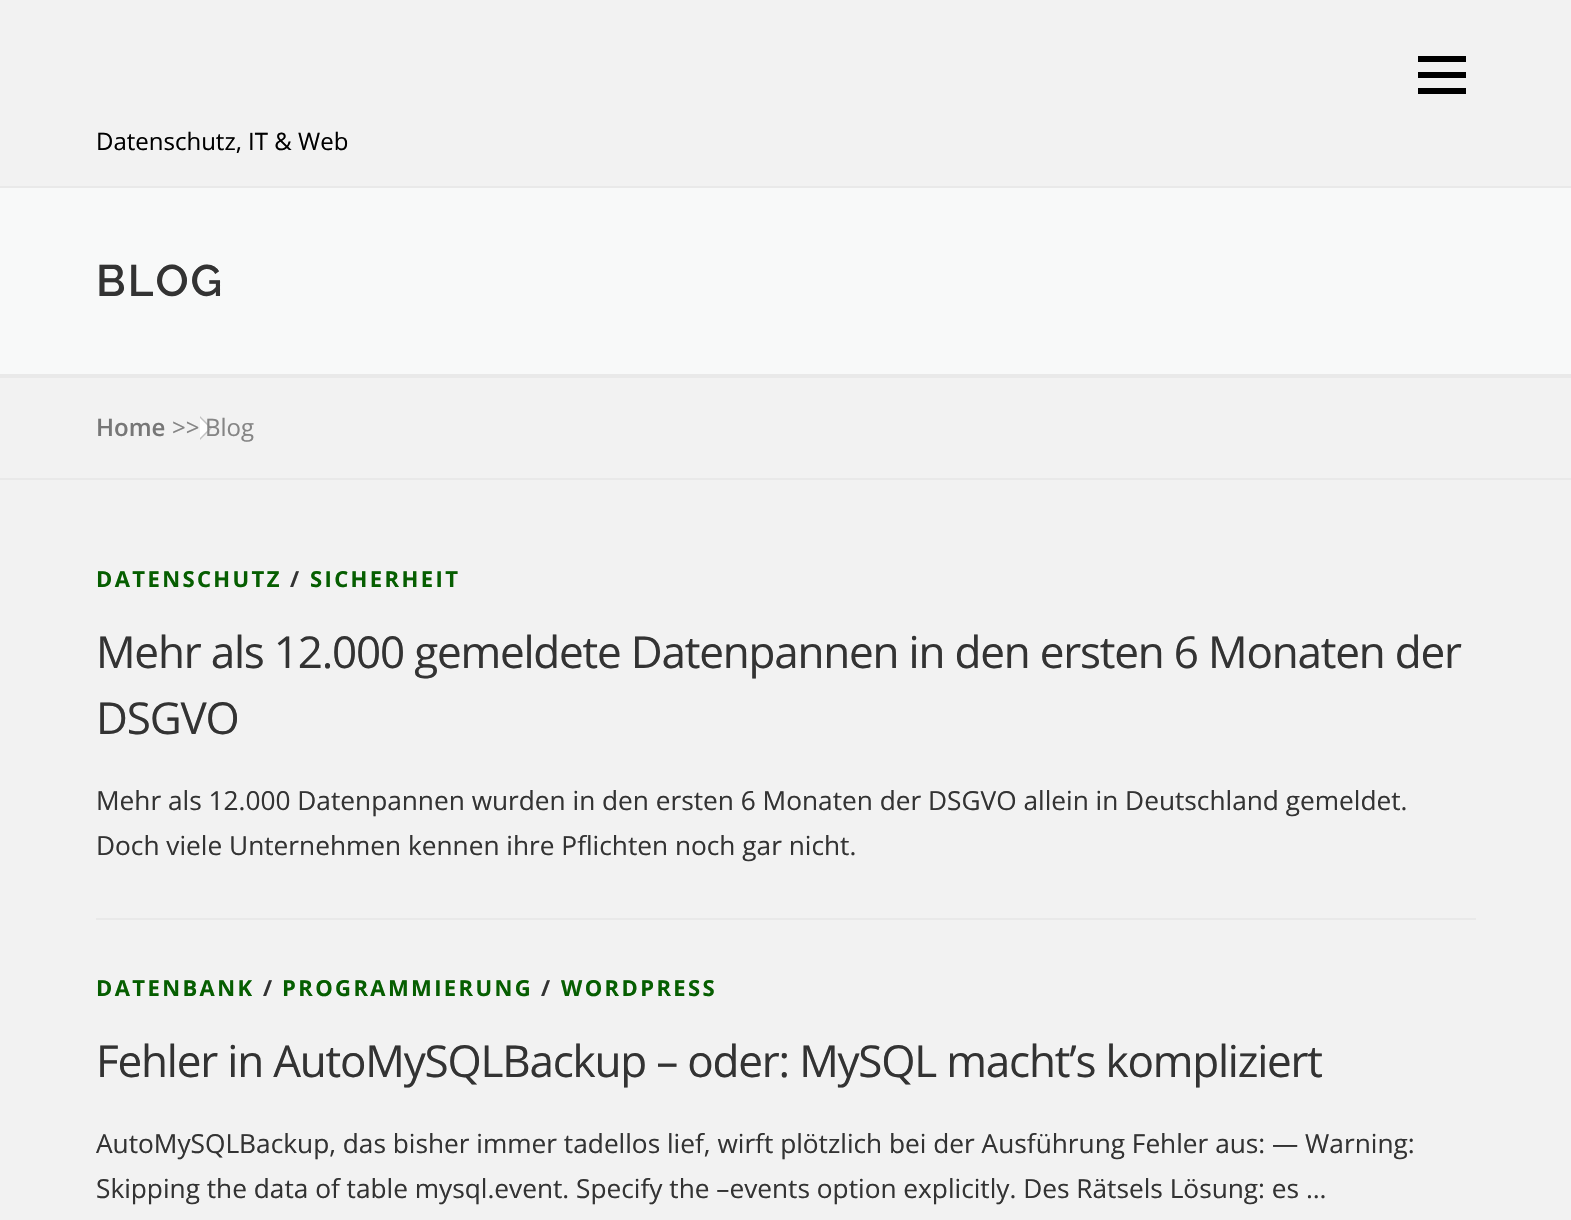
void draw(SkCanvas* canvas) {
  SkPaint paint;
  paint.setAntiAlias(true);
  auto face = [&](const char* family, int weight, float size, bool italic = false) {
    SkFontStyle style(weight, SkFontStyle::kNormal_Width,
      italic ? SkFontStyle::kItalic_Slant : SkFontStyle::kUpright_Slant);
    SkFont result(fontMgr->matchFamilyStyle(family, style), size);
    result.setSubpixel(true);
    return result;
  };
  auto writeSpaced = [&](const char* s, float x, float y, const SkFont& font, const SkPaint& ink, float letter, float word) {
    std::vector<SkGlyphID> glyphs(font.countText(s, strlen(s), SkTextEncoding::kUTF8));
    std::vector<float> xs(glyphs.size());
    font.textToGlyphs(s, strlen(s), SkTextEncoding::kUTF8, glyphs);
    font.getXPos(glyphs, xs, x);
    float extra = 0;
    for (size_t i = 0; i < glyphs.size(); i++) {
      xs[i] += extra;
      extra += letter + word * (glyphs[i] == font.unicharToGlyph(' '));
    }
    canvas->drawTextBlob(SkTextBlob::MakeFromPosHGlyphs(glyphs, xs, y, font), 0, 0, ink);
  };
  auto shape = [&](const char* data, bool evenOdd = false) {
    SkPath result = *SkParsePath::FromSVGString(data);
    if (evenOdd) result.setFillType(SkPathFillType::kEvenOdd);
    return result;
  };
  canvas->clear(0xfff2f2f2);
  {
    const struct { float x, y, w, h; SkColor color; } items[] = {
      {1418, 72, 48, 6, 0xff000000},
      {1418, 56, 48, 6, 0xff000000},
      {1418, 88, 48, 6, 0xff000000},
      {0, 188, 1571, 186, 0xfff8f9f9},
      {0, 186, 1571, 2, 0xffe9e9e9},
      {0, 374, 1571, 4, 0xffe9e9e9},
      {0, 478, 1571, 2, 0xffe9e9e9},
    };
    for (auto [x, y, w, h, color] : items) {
      paint.setColor(color);
      canvas->drawRect(SkRect::MakeXYWH(x, y, w, h), paint);
    }
  }
  paint.setColor(0xffc2c2c2);
  canvas->drawPath(shape("M200 440V416L212 428Z"), paint);
  paint.setColor(0xffffffff);
  canvas->drawPath(shape("M200 438V418L210 428Z"), paint);
  paint.setColor(0xffe9e9e9);
  canvas->drawRect(SkRect::MakeXYWH(96, 918, 1380, 2), paint);
  auto f0 = face("Open Sans", 400, 24);
  paint.setColor(0xff000000);
  canvas->drawString("Datenschutz, IT & Web", 96, 150, f0, paint);
  auto f1 = face("Raleway", 600, 44);
  paint.setColor(0xff333333);
  writeSpaced("BLOG", 96, 296, f1, paint, 2, 0);
  auto f2 = face("Open Sans", 600, 24);
  paint.setColor(0xff777777);
  canvas->drawString("Home", 96, 436, f2, paint);
  paint.setColor(0xff858585);
  canvas->drawString(">>", 172, 436, f0, paint);
  canvas->drawString("Blog", 205, 436, f0, paint);
  auto f3 = face("Open Sans", 700, 22);
  paint.setColor(0xff065e01);
  writeSpaced("DATENSCHUTZ", 96, 587, f3, paint, 2.4f, 0);
  paint.setColor(0xff333333);
  writeSpaced("/", 290, 587, f3, paint, 2.4f, 0);
  paint.setColor(0xff065e01);
  writeSpaced("SICHERHEIT", 310, 587, f3, paint, 2.4f, 0);
  auto f4 = face("Open Sans", 400, 44);
  paint.setColor(0xff333333);
  writeSpaced("Mehr als 12.000 gemeldete Datenpannen in den ersten 6 Monaten der", 96, 668, f4, paint, -1.2f, 0);
  writeSpaced("DSGVO", 96, 734, f4, paint, -1.2f, 0);
  auto f5 = face("Open Sans", 400, 26.25f);
  canvas->drawString("Mehr als 12.000 Datenpannen wurden in den ersten 6 Monaten der DSGVO allein in Deutschland gemeldet.", 96, 810, f5, paint);
  canvas->drawString("Doch viele Unternehmen kennen ihre Pflichten noch gar nicht.", 96, 855, f5, paint);
  paint.setColor(0xff065e01);
  writeSpaced("DATENBANK", 96, 996, f3, paint, 2.4f, 0);
  paint.setColor(0xff333333);
  writeSpaced("/", 263, 996, f3, paint, 2.4f, 0);
  paint.setColor(0xff065e01);
  writeSpaced("PROGRAMMIERUNG", 282, 996, f3, paint, 2.4f, 0);
  paint.setColor(0xff333333);
  writeSpaced("/", 541, 996, f3, paint, 2.4f, 0);
  paint.setColor(0xff065e01);
  writeSpaced("WORDPRESS", 561, 996, f3, paint, 2.4f, 0);
  paint.setColor(0xff333333);
  writeSpaced("Fehler in AutoMySQLBackup – oder: MySQL macht’s kompliziert", 96, 1077, f4, paint, -1.2f, 0);
  canvas->drawString("AutoMySQLBackup, das bisher immer tadellos lief, wirft plötzlich bei der Ausführung Fehler aus: — Warning:", 96, 1153, f5, paint);
  canvas->drawString("Skipping the data of table mysql.event. Specify the –events option explicitly. Des Rätsels Lösung: es …", 96, 1198, f5, paint);
}
